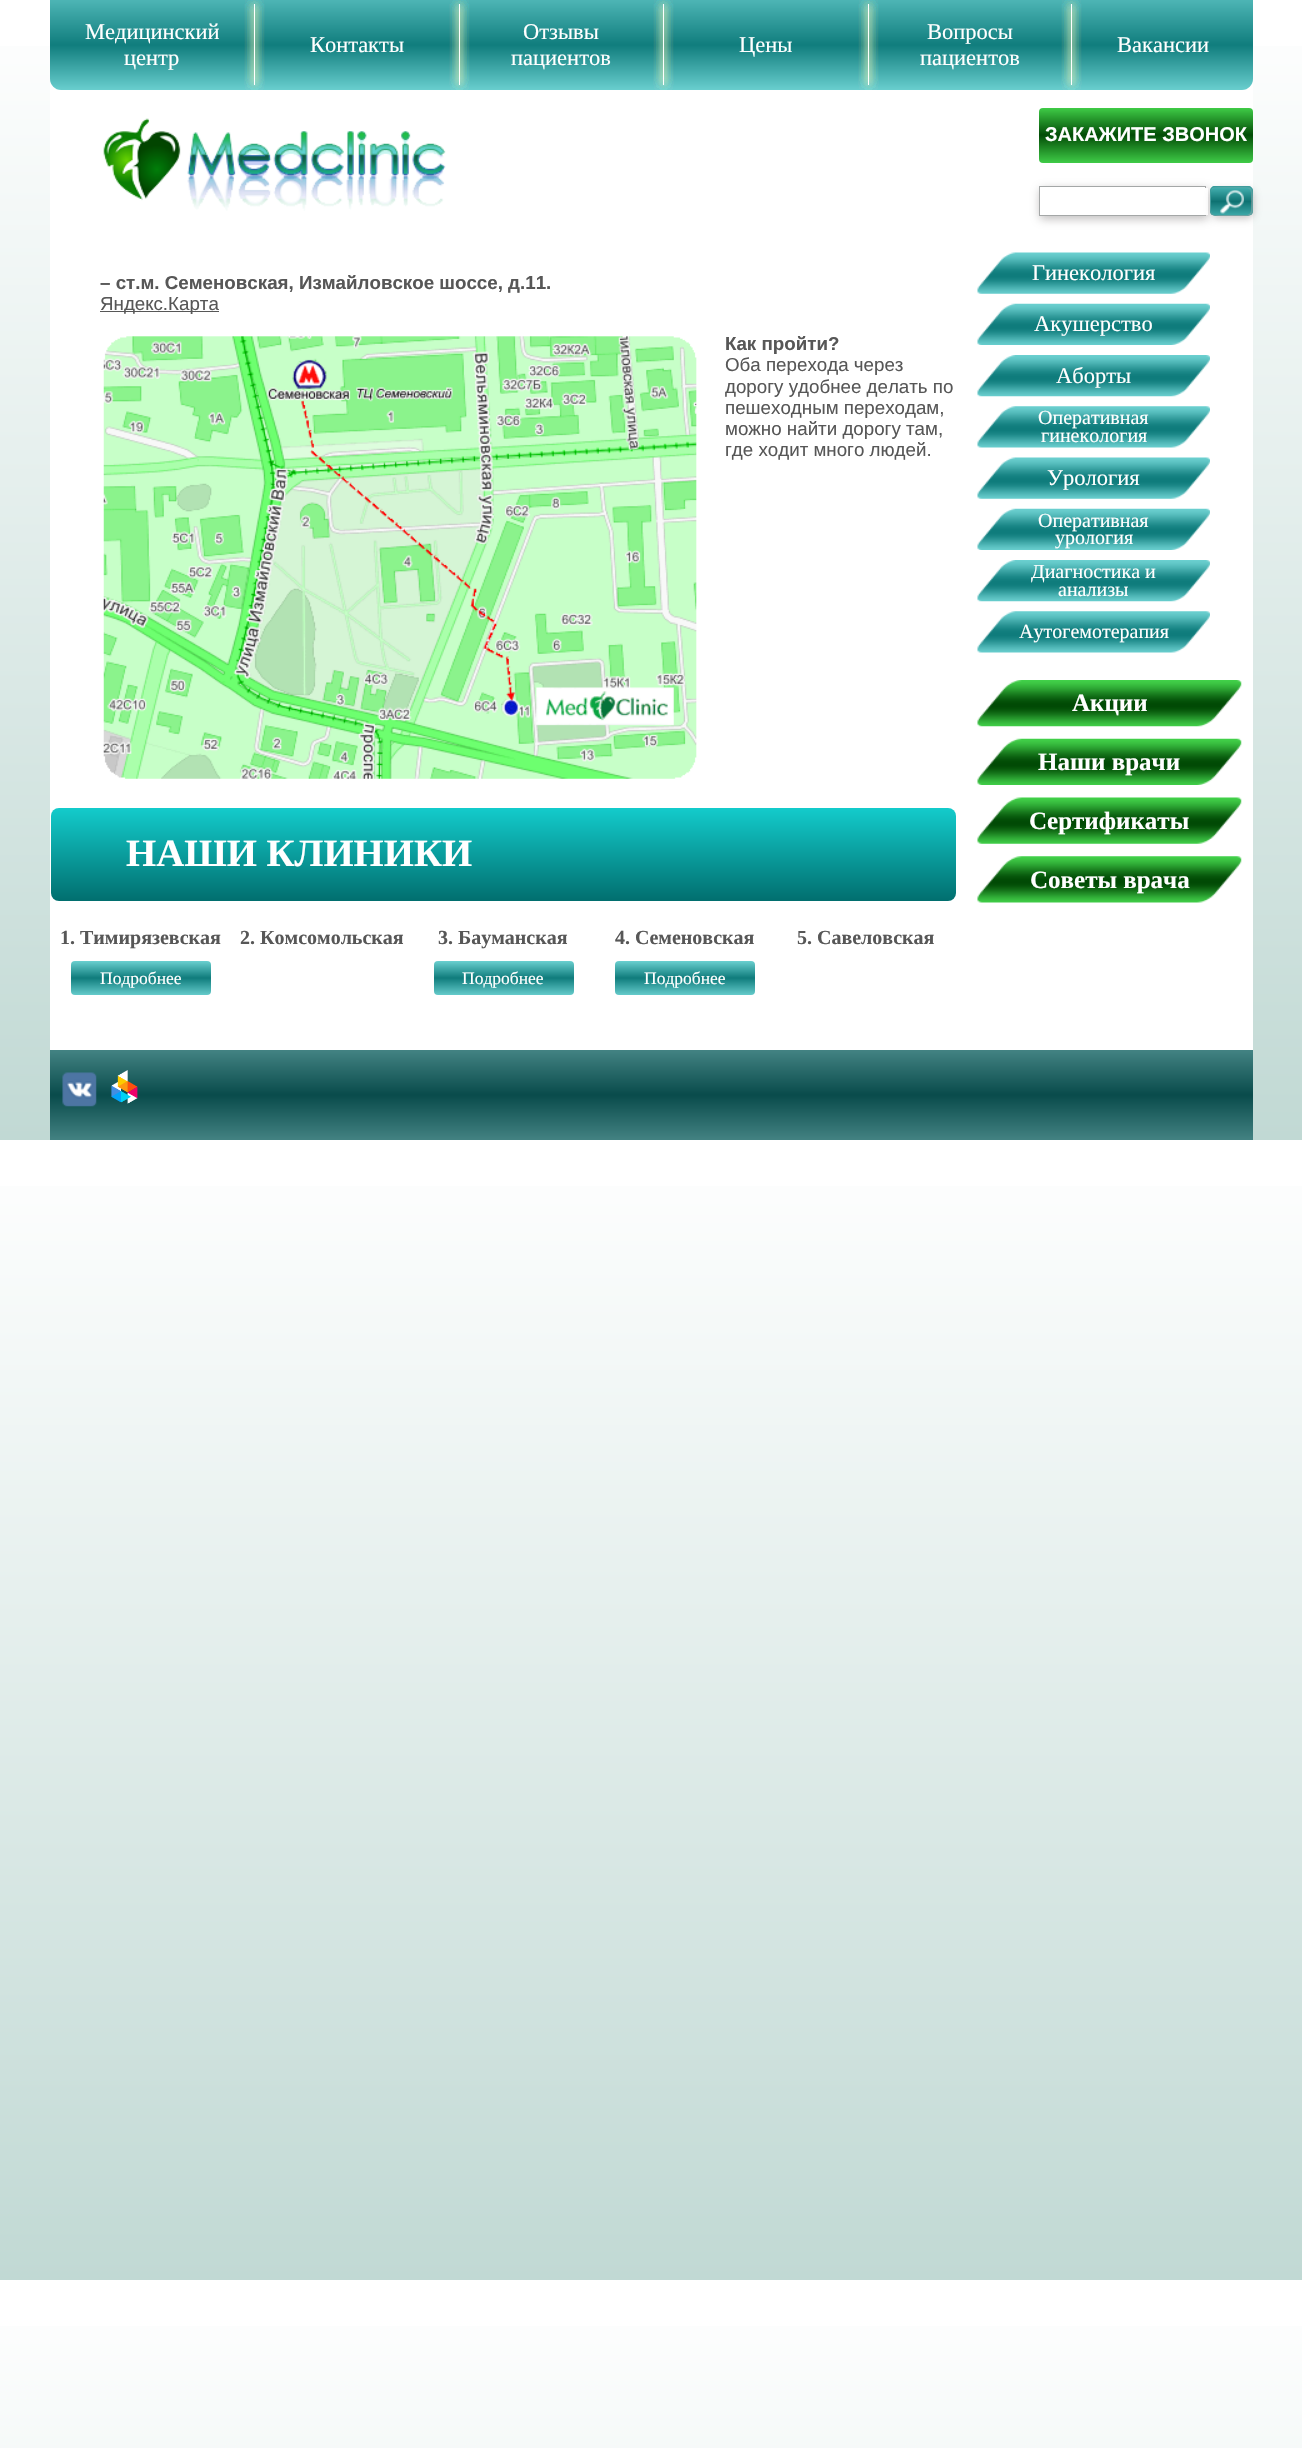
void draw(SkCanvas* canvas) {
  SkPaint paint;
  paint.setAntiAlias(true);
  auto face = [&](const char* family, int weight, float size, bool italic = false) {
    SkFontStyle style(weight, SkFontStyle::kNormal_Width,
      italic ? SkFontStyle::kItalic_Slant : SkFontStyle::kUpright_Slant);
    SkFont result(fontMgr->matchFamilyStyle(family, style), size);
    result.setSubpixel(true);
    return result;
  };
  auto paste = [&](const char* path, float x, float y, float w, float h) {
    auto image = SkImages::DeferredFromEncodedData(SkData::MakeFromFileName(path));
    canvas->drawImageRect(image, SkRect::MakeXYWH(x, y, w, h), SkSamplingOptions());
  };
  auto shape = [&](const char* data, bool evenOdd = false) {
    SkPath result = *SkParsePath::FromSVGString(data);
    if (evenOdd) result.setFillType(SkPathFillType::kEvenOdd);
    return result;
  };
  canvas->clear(0xffffffff);
  {
    const SkColor colors[] = {0xffffffff, 0xffc1d9d4};
    const float stops[] = {0, 1};
    const SkPoint ends[] = {{651, 0}, {651, 1140}};
    paint.setShader(SkGradientShader::MakeLinear(ends, colors, stops, 2, SkTileMode::kClamp));
    paint.setAlpha(255);
  }
  canvas->drawRect(SkRect::MakeXYWH(0, 46, 1302, 1094), paint);
  {
    const SkColor colors[] = {0xffffffff, 0xffc1d9d4};
    const float stops[] = {0, 1};
    const SkPoint ends[] = {{651, 1140}, {651, 2280}};
    paint.setShader(SkGradientShader::MakeLinear(ends, colors, stops, 2, SkTileMode::kClamp));
    paint.setAlpha(255);
  }
  canvas->drawRect(SkRect::MakeXYWH(0, 1186, 1302, 1094), paint);
  {
    const SkColor colors[] = {0xffffffff, 0xffc1d9d4};
    const float stops[] = {0, 1};
    const SkPoint ends[] = {{651, 2280}, {651, 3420}};
    paint.setShader(SkGradientShader::MakeLinear(ends, colors, stops, 2, SkTileMode::kClamp));
    paint.setAlpha(255);
  }
  canvas->drawRect(SkRect::MakeXYWH(0, 2326, 1302, 122), paint);
  paint.setShader(nullptr);
  paint.setColor(0xffffffff);
  canvas->drawRect(SkRect::MakeXYWH(50, 79, 1203, 971), paint);
  {
    const SkColor colors[] = {0xff4db5b5, 0xff107d7d, 0xff69cece};
    const float stops[] = {0, 0.5f, 1};
    const SkPoint ends[] = {{651, 0}, {651, 90}};
    paint.setShader(SkGradientShader::MakeLinear(ends, colors, stops, 3, SkTileMode::kClamp));
    paint.setAlpha(255);
  }
  canvas->drawPath(shape("M50 0H1253V79C1253 85 1248 90 1242 90H61C55 90 50 85 50 79Z"), paint);
  paint.setShader(nullptr);
  paint.setColor(0xbfffffbe);
  paint.setMaskFilter(SkMaskFilter::MakeBlur(kNormal_SkBlurStyle, 4.5f));
  canvas->drawRect(SkRect::MakeXYWH(254, 4, 1, 81), paint);
  paint.setMaskFilter(nullptr);
  paint.setMaskFilter(SkMaskFilter::MakeBlur(kNormal_SkBlurStyle, 4.5f));
  canvas->drawRect(SkRect::MakeXYWH(254, 4, 1, 81), paint);
  paint.setMaskFilter(nullptr);
  paint.setMaskFilter(SkMaskFilter::MakeBlur(kNormal_SkBlurStyle, 4.5f));
  canvas->drawRect(SkRect::MakeXYWH(254, 4, 1, 81), paint);
  paint.setMaskFilter(nullptr);
  paint.setMaskFilter(SkMaskFilter::MakeBlur(kNormal_SkBlurStyle, 4.5f));
  canvas->drawRect(SkRect::MakeXYWH(254, 4, 1, 81), paint);
  paint.setMaskFilter(nullptr);
  paint.setMaskFilter(SkMaskFilter::MakeBlur(kNormal_SkBlurStyle, 4.5f));
  canvas->drawRect(SkRect::MakeXYWH(254, 4, 1, 81), paint);
  paint.setMaskFilter(nullptr);
  paint.setMaskFilter(SkMaskFilter::MakeBlur(kNormal_SkBlurStyle, 4.5f));
  canvas->drawRect(SkRect::MakeXYWH(254, 4, 1, 81), paint);
  paint.setMaskFilter(nullptr);
  paint.setMaskFilter(SkMaskFilter::MakeBlur(kNormal_SkBlurStyle, 4.5f));
  canvas->drawRect(SkRect::MakeXYWH(254, 4, 1, 81), paint);
  paint.setMaskFilter(nullptr);
  paint.setColor(0xffffffff);
  canvas->drawRect(SkRect::MakeXYWH(254, 4, 1, 81), paint);
  paint.setColor(0xbfffffbe);
  paint.setMaskFilter(SkMaskFilter::MakeBlur(kNormal_SkBlurStyle, 4.5f));
  canvas->drawRect(SkRect::MakeXYWH(459, 4, 1, 81), paint);
  paint.setMaskFilter(nullptr);
  paint.setMaskFilter(SkMaskFilter::MakeBlur(kNormal_SkBlurStyle, 4.5f));
  canvas->drawRect(SkRect::MakeXYWH(459, 4, 1, 81), paint);
  paint.setMaskFilter(nullptr);
  paint.setMaskFilter(SkMaskFilter::MakeBlur(kNormal_SkBlurStyle, 4.5f));
  canvas->drawRect(SkRect::MakeXYWH(459, 4, 1, 81), paint);
  paint.setMaskFilter(nullptr);
  paint.setMaskFilter(SkMaskFilter::MakeBlur(kNormal_SkBlurStyle, 4.5f));
  canvas->drawRect(SkRect::MakeXYWH(459, 4, 1, 81), paint);
  paint.setMaskFilter(nullptr);
  paint.setMaskFilter(SkMaskFilter::MakeBlur(kNormal_SkBlurStyle, 4.5f));
  canvas->drawRect(SkRect::MakeXYWH(459, 4, 1, 81), paint);
  paint.setMaskFilter(nullptr);
  paint.setMaskFilter(SkMaskFilter::MakeBlur(kNormal_SkBlurStyle, 4.5f));
  canvas->drawRect(SkRect::MakeXYWH(459, 4, 1, 81), paint);
  paint.setMaskFilter(nullptr);
  paint.setMaskFilter(SkMaskFilter::MakeBlur(kNormal_SkBlurStyle, 4.5f));
  canvas->drawRect(SkRect::MakeXYWH(459, 4, 1, 81), paint);
  paint.setMaskFilter(nullptr);
  paint.setColor(0xffffffff);
  canvas->drawRect(SkRect::MakeXYWH(459, 4, 1, 81), paint);
  paint.setColor(0xbfffffbe);
  paint.setMaskFilter(SkMaskFilter::MakeBlur(kNormal_SkBlurStyle, 4.5f));
  canvas->drawRect(SkRect::MakeXYWH(663, 4, 1, 81), paint);
  paint.setMaskFilter(nullptr);
  paint.setMaskFilter(SkMaskFilter::MakeBlur(kNormal_SkBlurStyle, 4.5f));
  canvas->drawRect(SkRect::MakeXYWH(663, 4, 1, 81), paint);
  paint.setMaskFilter(nullptr);
  paint.setMaskFilter(SkMaskFilter::MakeBlur(kNormal_SkBlurStyle, 4.5f));
  canvas->drawRect(SkRect::MakeXYWH(663, 4, 1, 81), paint);
  paint.setMaskFilter(nullptr);
  paint.setMaskFilter(SkMaskFilter::MakeBlur(kNormal_SkBlurStyle, 4.5f));
  canvas->drawRect(SkRect::MakeXYWH(663, 4, 1, 81), paint);
  paint.setMaskFilter(nullptr);
  paint.setMaskFilter(SkMaskFilter::MakeBlur(kNormal_SkBlurStyle, 4.5f));
  canvas->drawRect(SkRect::MakeXYWH(663, 4, 1, 81), paint);
  paint.setMaskFilter(nullptr);
  paint.setMaskFilter(SkMaskFilter::MakeBlur(kNormal_SkBlurStyle, 4.5f));
  canvas->drawRect(SkRect::MakeXYWH(663, 4, 1, 81), paint);
  paint.setMaskFilter(nullptr);
  paint.setMaskFilter(SkMaskFilter::MakeBlur(kNormal_SkBlurStyle, 4.5f));
  canvas->drawRect(SkRect::MakeXYWH(663, 4, 1, 81), paint);
  paint.setMaskFilter(nullptr);
  paint.setColor(0xffffffff);
  canvas->drawRect(SkRect::MakeXYWH(663, 4, 1, 81), paint);
  paint.setColor(0xbfffffbe);
  paint.setMaskFilter(SkMaskFilter::MakeBlur(kNormal_SkBlurStyle, 4.5f));
  canvas->drawRect(SkRect::MakeXYWH(868, 4, 1, 81), paint);
  paint.setMaskFilter(nullptr);
  paint.setMaskFilter(SkMaskFilter::MakeBlur(kNormal_SkBlurStyle, 4.5f));
  canvas->drawRect(SkRect::MakeXYWH(868, 4, 1, 81), paint);
  paint.setMaskFilter(nullptr);
  paint.setMaskFilter(SkMaskFilter::MakeBlur(kNormal_SkBlurStyle, 4.5f));
  canvas->drawRect(SkRect::MakeXYWH(868, 4, 1, 81), paint);
  paint.setMaskFilter(nullptr);
  paint.setMaskFilter(SkMaskFilter::MakeBlur(kNormal_SkBlurStyle, 4.5f));
  canvas->drawRect(SkRect::MakeXYWH(868, 4, 1, 81), paint);
  paint.setMaskFilter(nullptr);
  paint.setMaskFilter(SkMaskFilter::MakeBlur(kNormal_SkBlurStyle, 4.5f));
  canvas->drawRect(SkRect::MakeXYWH(868, 4, 1, 81), paint);
  paint.setMaskFilter(nullptr);
  paint.setMaskFilter(SkMaskFilter::MakeBlur(kNormal_SkBlurStyle, 4.5f));
  canvas->drawRect(SkRect::MakeXYWH(868, 4, 1, 81), paint);
  paint.setMaskFilter(nullptr);
  paint.setMaskFilter(SkMaskFilter::MakeBlur(kNormal_SkBlurStyle, 4.5f));
  canvas->drawRect(SkRect::MakeXYWH(868, 4, 1, 81), paint);
  paint.setMaskFilter(nullptr);
  paint.setColor(0xffffffff);
  canvas->drawRect(SkRect::MakeXYWH(868, 4, 1, 81), paint);
  paint.setColor(0xbfffffbe);
  paint.setMaskFilter(SkMaskFilter::MakeBlur(kNormal_SkBlurStyle, 4.5f));
  canvas->drawRect(SkRect::MakeXYWH(1071, 4, 1, 81), paint);
  paint.setMaskFilter(nullptr);
  paint.setMaskFilter(SkMaskFilter::MakeBlur(kNormal_SkBlurStyle, 4.5f));
  canvas->drawRect(SkRect::MakeXYWH(1071, 4, 1, 81), paint);
  paint.setMaskFilter(nullptr);
  paint.setMaskFilter(SkMaskFilter::MakeBlur(kNormal_SkBlurStyle, 4.5f));
  canvas->drawRect(SkRect::MakeXYWH(1071, 4, 1, 81), paint);
  paint.setMaskFilter(nullptr);
  paint.setMaskFilter(SkMaskFilter::MakeBlur(kNormal_SkBlurStyle, 4.5f));
  canvas->drawRect(SkRect::MakeXYWH(1071, 4, 1, 81), paint);
  paint.setMaskFilter(nullptr);
  paint.setMaskFilter(SkMaskFilter::MakeBlur(kNormal_SkBlurStyle, 4.5f));
  canvas->drawRect(SkRect::MakeXYWH(1071, 4, 1, 81), paint);
  paint.setMaskFilter(nullptr);
  paint.setMaskFilter(SkMaskFilter::MakeBlur(kNormal_SkBlurStyle, 4.5f));
  canvas->drawRect(SkRect::MakeXYWH(1071, 4, 1, 81), paint);
  paint.setMaskFilter(nullptr);
  paint.setMaskFilter(SkMaskFilter::MakeBlur(kNormal_SkBlurStyle, 4.5f));
  canvas->drawRect(SkRect::MakeXYWH(1071, 4, 1, 81), paint);
  paint.setMaskFilter(nullptr);
  paint.setColor(0xffffffff);
  canvas->drawRect(SkRect::MakeXYWH(1071, 4, 1, 81), paint);
  paste("img/1.png", 103, 118, 343, 93);
  {
    const SkColor colors[] = {0xff41d049, 0xff024c06, 0xff3fcc47};
    const float stops[] = {0, 0.5f, 1};
    const SkPoint ends[] = {{1146, 107}, {1146, 163}};
    paint.setShader(SkGradientShader::MakeLinear(ends, colors, stops, 3, SkTileMode::kClamp));
    paint.setAlpha(255);
  }
  canvas->drawRoundRect(SkRect::MakeXYWH(1039, 108, 214, 55), 4, 4, paint);
  canvas->save();
  canvas->clipPath(shape("M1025 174H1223V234H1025ZM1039 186H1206V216H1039Z", true), true);
  paint.setShader(nullptr);
  paint.setColor(0xbfaaa7a7);
  paint.setMaskFilter(SkMaskFilter::MakeBlur(kNormal_SkBlurStyle, 4.5f));
  canvas->drawRect(SkRect::MakeXYWH(1040, 189, 168, 30), paint);
  paint.setMaskFilter(nullptr);
  canvas->restore();
  paint.setStroke(true);
  paint.setStrokeWidth(1);
  paint.setColor(0xffa4a7a7);
  canvas->drawRect(SkRect::MakeXYWH(1039.5f, 186.5f, 166, 29), paint);
  paint.setStroke(false);
  paint.setColor(0xffffffff);
  canvas->drawRect(SkRect::MakeXYWH(1205, 188, 3, 27), paint);
  canvas->save();
  canvas->clipPath(shape("M1215 186H1248C1251 186 1253 188 1253 191V211C1253 214 1251 216 1248 216H1215C1212 216 1210 214 1210 211V191C1210 188 1212 186 1215 186Z"), true);
  {
    const SkColor colors[] = {0xff41adad, 0xff0e7272, 0xff3ca7a7};
    const float stops[] = {0, 0.5f, 1};
    const SkPoint ends[] = {{1231, 160}, {1231, 188}};
    paint.setShader(SkGradientShader::MakeLinear(ends, colors, stops, 3, SkTileMode::kClamp));
    paint.setAlpha(255);
  }
  canvas->drawRect(SkRect::MakeXYWH(1210, 186, 43, 2), paint);
  {
    const SkColor colors[] = {0xff41adad, 0xff0e7272, 0xff3ca7a7};
    const float stops[] = {0, 0.5f, 1};
    const SkPoint ends[] = {{1231, 188}, {1231, 215}};
    paint.setShader(SkGradientShader::MakeLinear(ends, colors, stops, 3, SkTileMode::kClamp));
    paint.setAlpha(255);
  }
  canvas->drawRect(SkRect::MakeXYWH(1210, 188, 43, 27), paint);
  canvas->restore();
  paint.setStroke(true);
  paint.setShader(nullptr);
  paint.setColor(0xff2d9a9a);
  canvas->drawRoundRect(SkRect::MakeXYWH(1210.5f, 186.5f, 42, 29), 4.5f, 4.5f, paint);
  canvas->save();
  canvas->clipPath(shape("M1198 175H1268V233H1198ZM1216 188H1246C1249 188 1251 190 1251 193V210C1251 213 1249 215 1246 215H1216C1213 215 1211 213 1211 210V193C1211 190 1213 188 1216 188Z", true), true);
  paint.setStroke(false);
  paint.setColor(0xbfaaa7a7);
  paint.setMaskFilter(SkMaskFilter::MakeBlur(kNormal_SkBlurStyle, 4.5f));
  canvas->drawRoundRect(SkRect::MakeXYWH(1213, 190, 40, 28), 5, 5, paint);
  paint.setMaskFilter(nullptr);
  canvas->restore();
  paste("img/2.png", 1220, 190, 24, 24);
  paint.setColor(0xff575757);
  canvas->drawRect(SkRect::MakeXYWH(100, 311, 119, 1), paint);
  paste("img/3.png", 103, 336, 594, 443);
  {
    const SkColor colors[] = {0xff13cccc, 0xff016e6e};
    const float stops[] = {0, 1};
    const SkPoint ends[] = {{504, 808}, {504, 901}};
    paint.setShader(SkGradientShader::MakeLinear(ends, colors, stops, 2, SkTileMode::kClamp));
    paint.setAlpha(255);
  }
  canvas->drawRoundRect(SkRect::MakeXYWH(51, 808, 905, 93), 8, 8, paint);
  {
    const SkColor colors[] = {0xff6acfcf, 0xff0f7c7c, 0xff65cbcb};
    const float stops[] = {0, 0.5f, 1};
    const SkPoint ends[] = {{141, 961}, {141, 995}};
    paint.setShader(SkGradientShader::MakeLinear(ends, colors, stops, 3, SkTileMode::kClamp));
    paint.setAlpha(255);
  }
  canvas->drawRoundRect(SkRect::MakeXYWH(71, 961, 140, 34), 4, 4, paint);
  {
    const SkColor colors[] = {0xff6acfcf, 0xff0f7c7c, 0xff65cbcb};
    const float stops[] = {0, 0.5f, 1};
    const SkPoint ends[] = {{504, 961}, {504, 995}};
    paint.setShader(SkGradientShader::MakeLinear(ends, colors, stops, 3, SkTileMode::kClamp));
    paint.setAlpha(255);
  }
  canvas->drawRoundRect(SkRect::MakeXYWH(434, 961, 140, 34), 4, 4, paint);
  {
    const SkColor colors[] = {0xff6acfcf, 0xff0f7c7c, 0xff65cbcb};
    const float stops[] = {0, 0.5f, 1};
    const SkPoint ends[] = {{685, 961}, {685, 995}};
    paint.setShader(SkGradientShader::MakeLinear(ends, colors, stops, 3, SkTileMode::kClamp));
    paint.setAlpha(255);
  }
  canvas->drawRoundRect(SkRect::MakeXYWH(615, 961, 140, 34), 4, 4, paint);
  paste("img/4.png", 977, 252, 233, 42);
  paste("img/5.png", 977, 303, 233, 42);
  paste("img/6.png", 977, 355, 233, 42);
  paste("img/7.png", 977, 406, 233, 42);
  paste("img/4.png", 977, 457, 233, 42);
  paste("img/5.png", 977, 508, 233, 42);
  paste("img/8.png", 977, 560, 233, 42);
  paste("img/7.png", 977, 611, 233, 42);
  paste("img/9.png", 977, 680, 265, 47);
  paste("img/10.png", 977, 738, 265, 47);
  paste("img/11.png", 977, 797, 265, 47);
  paste("img/12.png", 977, 856, 265, 47);
  {
    const SkColor colors[] = {0xff438383, 0xff094b4b, 0xff438282};
    const float stops[] = {0, 0.5f, 1};
    const SkPoint ends[] = {{651, 1050}, {651, 1140}};
    paint.setShader(SkGradientShader::MakeLinear(ends, colors, stops, 3, SkTileMode::kClamp));
    paint.setAlpha(255);
  }
  canvas->drawRect(SkRect::MakeXYWH(50, 1050, 1203, 90), paint);
  paste("img/13.png", 62, 1072, 35, 35);
  paste("img/14.png", 111, 1070, 27, 34);
  auto f0 = face("Liberation Serif", 400, 22.5f);
  paint.setShader(nullptr);
  paint.setColor(0xffffffff);
  {
    const struct { const char* s; float x, y; } items[] = {
      {"Медицинский", 85, 39},
      {"центр", 124, 65},
      {"Контакты", 310, 52},
      {"Отзывы", 523, 39},
      {"пациентов", 511, 65},
      {"Цены", 739, 52},
      {"Вопросы", 927, 39},
      {"пациентов", 920, 65},
      {"Вакансии", 1117, 52},
    };
    for (auto [s, x, y] : items) {
      canvas->drawString(s, x, y, f0, paint);
    }
  }
  auto f1 = face("Liberation Sans", 700, 20);
  canvas->drawString("ЗАКАЖИТЕ ЗВОНОК", 1045, 141, f1, paint);
  auto f2 = face("Liberation Sans", 700, 18.75f);
  paint.setColor(0xff575757);
  canvas->drawString("– ст.м. Семеновская, Измайловское шоссе, д.11.", 100, 289, f2, paint);
  auto f3 = face("Liberation Sans", 400, 18.75f);
  canvas->drawString("Яндекс.Карта", 100, 310, f3, paint);
  canvas->drawString("Как пройти?", 725, 350, f2, paint);
  {
    const struct { const char* s; float x, y; } items[] = {
      {"Оба перехода через", 725, 371},
      {"дорогу удобнее делать по", 725, 393},
      {"пешеходным переходам,", 725, 414},
      {"можно найти дорогу там,", 725, 435},
      {"где ходит много людей.", 725, 456},
    };
    for (auto [s, x, y] : items) {
      canvas->drawString(s, x, y, f3, paint);
    }
  }
  auto f4 = face("Liberation Serif", 700, 38.75f);
  paint.setColor(0xffffffff);
  canvas->drawString("НАШИ КЛИНИКИ", 126, 866, f4, paint);
  auto f5 = face("Liberation Serif", 700, 20);
  paint.setColor(0xff575757);
  {
    const struct { const char* s; float x, y; } items[] = {
      {"1. Тимирязевская", 60, 944},
      {"2. Комсомольская", 240, 944},
      {"3. Бауманская", 438, 944},
      {"4. Семеновская", 615, 944},
      {"5. Савеловская", 797, 944},
    };
    for (auto [s, x, y] : items) {
      canvas->drawString(s, x, y, f5, paint);
    }
  }
  auto f6 = face("Liberation Serif", 400, 17.5f);
  paint.setColor(0xffffffff);
  {
    const struct { const char* s; float x, y; } items[] = {
      {"Подробнее", 100, 984},
      {"Подробнее", 462, 984},
      {"Подробнее", 644, 984},
    };
    for (auto [s, x, y] : items) {
      canvas->drawString(s, x, y, f6, paint);
    }
  }
  {
    const struct { const char* s; float x, y; } items[] = {
      {"Гинекология", 1032, 280},
      {"Акушерство", 1034, 331},
      {"Аборты", 1056, 383},
    };
    for (auto [s, x, y] : items) {
      canvas->drawString(s, x, y, f0, paint);
    }
  }
  auto f7 = face("Liberation Serif", 400, 20);
  canvas->drawString("Оперативная", 1038, 424, f7, paint);
  canvas->drawString("гинекология", 1041, 442, f7, paint);
  canvas->drawString("Урология", 1047, 485, f0, paint);
  {
    const struct { const char* s; float x, y; } items[] = {
      {"Оперативная", 1038, 527},
      {"урология", 1055, 544},
      {"Диагностика и", 1031, 578},
      {"анализы", 1058, 596},
      {"Аутогемотерапия", 1019, 638},
    };
    for (auto [s, x, y] : items) {
      canvas->drawString(s, x, y, f7, paint);
    }
  }
  auto f8 = face("Liberation Serif", 700, 25);
  {
    const struct { const char* s; float x, y; } items[] = {
      {"Акции", 1072, 711},
      {"Наши врачи", 1038, 770},
      {"Сертификаты", 1029, 829},
      {"Советы врача", 1030, 888},
    };
    for (auto [s, x, y] : items) {
      canvas->drawString(s, x, y, f8, paint);
    }
  }
}
